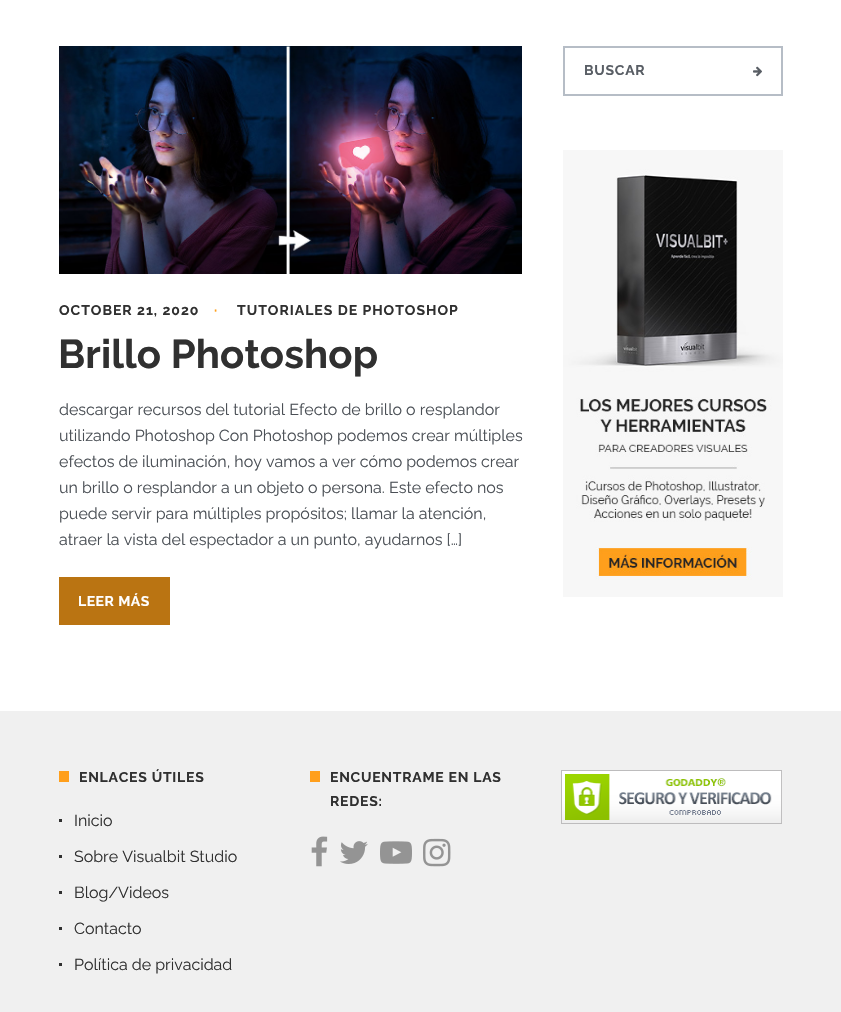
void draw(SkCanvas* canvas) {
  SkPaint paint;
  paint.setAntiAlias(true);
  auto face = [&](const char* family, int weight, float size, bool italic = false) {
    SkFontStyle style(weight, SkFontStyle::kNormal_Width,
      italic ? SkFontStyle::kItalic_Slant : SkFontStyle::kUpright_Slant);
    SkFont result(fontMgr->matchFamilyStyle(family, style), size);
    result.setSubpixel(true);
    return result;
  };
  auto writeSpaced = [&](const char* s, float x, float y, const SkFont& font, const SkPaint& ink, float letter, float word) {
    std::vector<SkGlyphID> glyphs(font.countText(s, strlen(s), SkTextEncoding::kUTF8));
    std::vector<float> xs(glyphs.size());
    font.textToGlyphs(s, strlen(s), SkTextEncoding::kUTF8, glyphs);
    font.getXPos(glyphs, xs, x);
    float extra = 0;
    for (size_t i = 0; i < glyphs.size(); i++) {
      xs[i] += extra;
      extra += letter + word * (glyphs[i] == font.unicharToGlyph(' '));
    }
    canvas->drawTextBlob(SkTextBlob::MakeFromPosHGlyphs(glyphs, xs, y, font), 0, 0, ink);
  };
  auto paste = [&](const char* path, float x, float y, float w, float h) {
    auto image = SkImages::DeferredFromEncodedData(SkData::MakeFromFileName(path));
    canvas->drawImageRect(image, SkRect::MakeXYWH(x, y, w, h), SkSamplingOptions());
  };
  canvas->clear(0xffffffff);
  paint.setStroke(true);
  paint.setStrokeWidth(2);
  paint.setColor(0xffb6bdc6);
  canvas->drawRect(SkRect::MakeXYWH(564, 47, 218, 48), paint);
  paste("img/1.png", 753, 66, 9, 11);
  paste("img/2.png", 563, 150, 220, 447);
  paste("img/3.png", 59, 46, 463, 228);
  paint.setStroke(false);
  {
    const struct { float x, y, w, h; SkColor color; } items[] = {
      {59, 577, 111, 48, 0xffba7412},
      {0, 711, 841, 301, 0xfff0f0f0},
      {59, 771, 10, 11, 0xffff9f1c},
      {59, 819, 3, 3, 0xff303030},
      {59, 855, 3, 3, 0xff303030},
      {59, 891, 3, 3, 0xff303030},
      {59, 927, 3, 3, 0xff303030},
      {59, 963, 3, 3, 0xff303030},
      {310, 771, 10, 11, 0xffff9f1c},
    };
    for (auto [x, y, w, h, color] : items) {
      paint.setColor(color);
      canvas->drawRect(SkRect::MakeXYWH(x, y, w, h), paint);
    }
  }
  paste("img/4.png", 311, 836, 17, 31);
  paste("img/5.png", 340, 841, 28, 23);
  paste("img/6.png", 380, 841, 32, 23);
  paste("img/7.png", 423, 838, 28, 29);
  paste("img/8.png", 561, 770, 221, 54);
  auto f0 = face("Raleway", 700, 14);
  paint.setColor(0xff595e65);
  writeSpaced("BUSCAR", 584, 75, f0, paint, 0.75f, 0);
  paint.setColor(0xff303030);
  writeSpaced("OCTOBER 21, 2020", 59, 315, f0, paint, 1, 0);
  paint.setColor(0xffff9f1c);
  writeSpaced("·", 214, 315, f0, paint, 1, 0);
  paint.setColor(0xff303030);
  writeSpaced("TUTORIALES DE PHOTOSHOP", 237, 315, f0, paint, 1, 0);
  auto f1 = face("Raleway", 700, 40);
  writeSpaced("Brillo Photoshop", 58, 368, f1, paint, 0.1f, 0);
  auto f2 = face("Raleway", 400, 16);
  paint.setColor(0xff4b5056);
  {
    const struct { const char* s; float x, y; } items[] = {
      {"descargar recursos del tutorial Efecto de brillo o resplandor", 59, 415},
      {"utilizando Photoshop Con Photoshop podemos crear múltiples", 59, 441},
      {"efectos de iluminación, hoy vamos a ver cómo podemos crear", 59, 467},
      {"un brillo o resplandor a un objeto o persona. Este efecto nos", 59, 493},
      {"puede servir para múltiples propósitos; llamar la atención,", 59, 519},
      {"atraer la vista del espectador a un punto, ayudarnos […]", 59, 545},
    };
    for (auto [s, x, y] : items) {
      canvas->drawString(s, x, y, f2, paint);
    }
  }
  paint.setColor(0xffffffff);
  writeSpaced("LEER MÁS", 78, 606, f0, paint, 0.5f, 0);
  paint.setColor(0xff303030);
  writeSpaced("ENLACES ÚTILES", 79, 782, f0, paint, 0.75f, 0);
  {
    const struct { const char* s; float x, y; } items[] = {
      {"Inicio", 74, 826},
      {"Sobre Visualbit Studio", 74, 862},
      {"Blog/Videos", 74, 898},
      {"Contacto", 74, 934},
      {"Política de privacidad", 74, 970},
    };
    for (auto [s, x, y] : items) {
      canvas->drawString(s, x, y, f2, paint);
    }
  }
  writeSpaced("ENCUENTRAME EN LAS", 330, 782, f0, paint, 0.75f, 0);
  writeSpaced("REDES:", 330, 806, f0, paint, 0.75f, 0);
}
